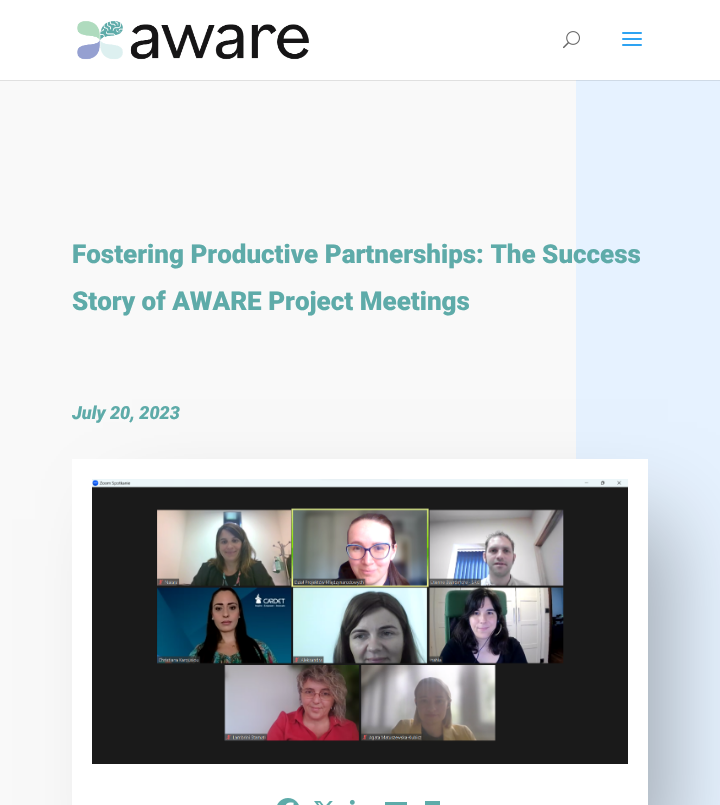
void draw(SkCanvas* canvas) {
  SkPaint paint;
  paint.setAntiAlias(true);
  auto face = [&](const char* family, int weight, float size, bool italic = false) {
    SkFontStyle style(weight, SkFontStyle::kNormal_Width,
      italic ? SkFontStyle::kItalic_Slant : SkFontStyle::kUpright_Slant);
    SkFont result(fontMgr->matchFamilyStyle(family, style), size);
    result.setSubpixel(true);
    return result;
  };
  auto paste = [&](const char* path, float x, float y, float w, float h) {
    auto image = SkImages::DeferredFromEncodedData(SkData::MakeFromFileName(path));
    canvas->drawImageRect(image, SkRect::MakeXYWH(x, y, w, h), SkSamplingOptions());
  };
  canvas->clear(0xfff9f9f9);
  paint.setColor(0xffffffff);
  canvas->drawRect(SkRect::MakeXYWH(0, 0, 720, 80), paint);
  paste("img/1.png", 77, 21, 232, 39);
  paste("img/2.png", 563, 31, 17, 18);
  paste("img/3.png", 622, 32, 20, 14);
  {
    const struct { float x, y, w, h; SkColor color; } items[] = {
      {0, 80, 576, 1, 0xffe0e0e0},
      {576, 81, 144, 724, 0xffe6f2ff},
      {576, 80, 144, 1, 0xffcfdae6},
    };
    for (auto [x, y, w, h, color] : items) {
      paint.setColor(color);
      canvas->drawRect(SkRect::MakeXYWH(x, y, w, h), paint);
    }
  }
  paint.setColor(0x4d000000);
  paint.setMaskFilter(SkMaskFilter::MakeBlur(kNormal_SkBlurStyle, 40));
  canvas->drawRect(SkRect::MakeXYWH(132, 519, 536, 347), paint);
  paint.setMaskFilter(nullptr);
  paint.setColor(0xffffffff);
  canvas->drawRect(SkRect::MakeXYWH(72, 459, 576, 346), paint);
  paste("img/4.png", 92, 479, 536, 285);
  paste("img/5.png", 277, 798, 22, 7);
  paste("img/6.png", 314, 801, 19, 4);
  paste("img/7.png", 349, 799, 6, 6);
  paint.setColor(0xff5eaba9);
  canvas->drawRect(SkRect::MakeXYWH(385, 802, 22, 3), paint);
  canvas->drawRect(SkRect::MakeXYWH(425, 801, 15, 4), paint);
  auto f0 = face("Roboto", 900, 26);
  canvas->drawString("Fostering Productive Partnerships: The Success", 72, 263, f0, paint);
  canvas->drawString("Story of AWARE Project Meetings", 72, 310, f0, paint);
  auto f1 = face("Roboto", 900, 18, true);
  canvas->drawString("July 20, 2023", 72, 419, f1, paint);
}
